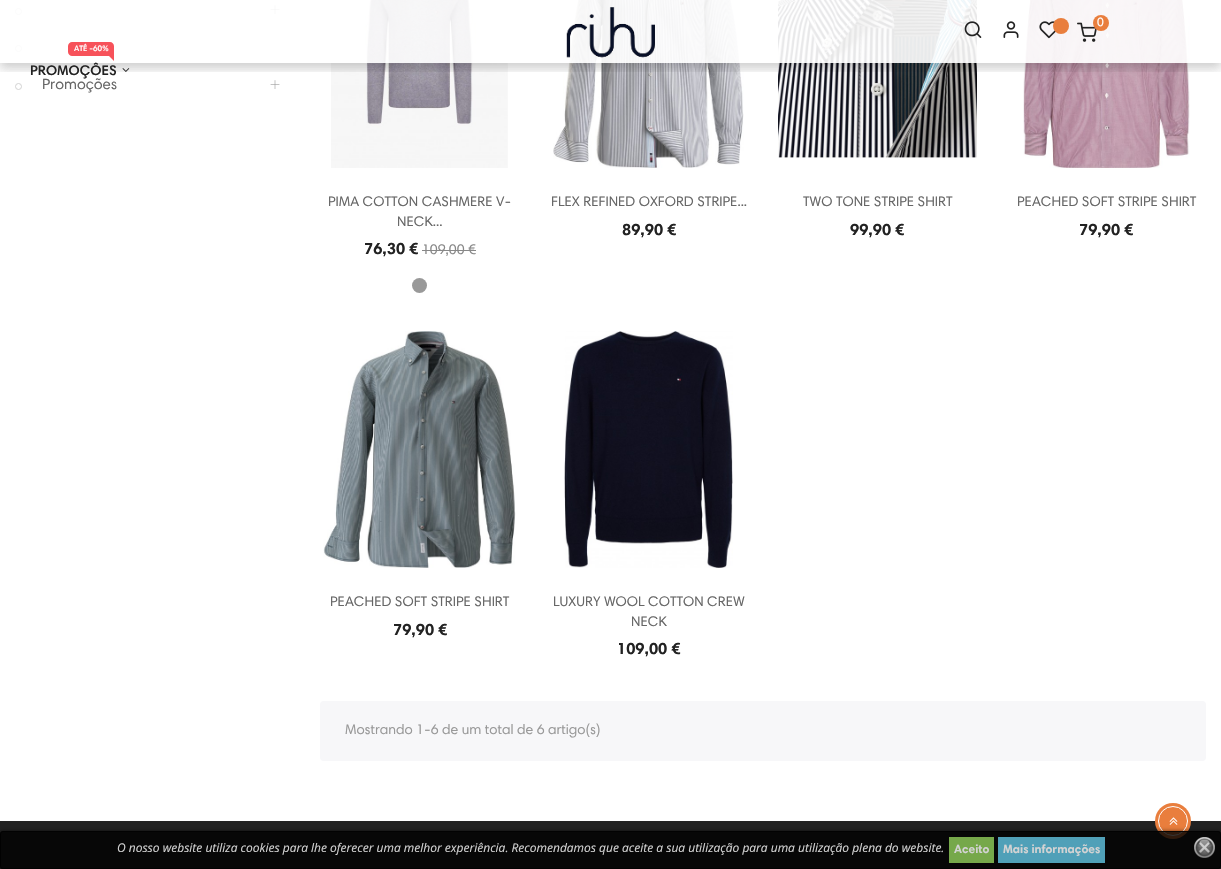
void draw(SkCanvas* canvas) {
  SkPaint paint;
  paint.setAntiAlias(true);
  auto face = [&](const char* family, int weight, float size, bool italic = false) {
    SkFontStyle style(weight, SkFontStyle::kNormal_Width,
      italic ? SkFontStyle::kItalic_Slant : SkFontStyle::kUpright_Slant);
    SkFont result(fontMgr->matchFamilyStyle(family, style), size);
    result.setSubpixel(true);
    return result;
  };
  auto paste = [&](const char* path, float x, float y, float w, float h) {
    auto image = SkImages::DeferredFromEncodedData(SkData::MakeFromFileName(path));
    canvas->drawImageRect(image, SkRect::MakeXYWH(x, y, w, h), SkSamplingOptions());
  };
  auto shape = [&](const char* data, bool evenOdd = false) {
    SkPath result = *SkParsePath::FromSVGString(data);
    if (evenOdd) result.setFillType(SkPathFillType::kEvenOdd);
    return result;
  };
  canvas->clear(0xffffffff);
  paint.setStroke(true);
  paint.setStrokeWidth(1);
  paint.setColor(0xffd2d2d2);
  canvas->drawCircle(18.5f, 11.5f, 3, paint);
  paste("img/8.png", 270, 5, 10, 9);
  canvas->drawCircle(18.5f, 48.5f, 3, paint);
  canvas->drawCircle(18.5f, 86.5f, 3, paint);
  paste("img/8.png", 270, 80, 10, 9);
  paste("img/9.png", 331, 0, 177, 168);
  paste("img/10.png", 553, 0, 191, 168);
  paste("img/11.png", 778, 0, 199, 158);
  paste("img/12.png", 1023, 0, 167, 168);
  canvas->save();
  canvas->clipRect(SkRect::MakeXYWH(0, 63, 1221, 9));
  paint.setStroke(false);
  paint.setColor(0x1a000000);
  paint.setMaskFilter(SkMaskFilter::MakeBlur(kNormal_SkBlurStyle, 5));
  canvas->drawRect(SkRect::MakeXYWH(0, 5, 1221, 63), paint);
  paint.setMaskFilter(nullptr);
  canvas->restore();
  paint.setColor(0xe6ffffff);
  canvas->drawRect(SkRect::MakeXYWH(15, 0, 1173, 63), paint);
  canvas->save();
  canvas->clipRect(SkRect::MakeXYWH(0, 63, 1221, 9));
  paint.setColor(0x1a000000);
  paint.setMaskFilter(SkMaskFilter::MakeBlur(kNormal_SkBlurStyle, 5));
  canvas->drawRect(SkRect::MakeXYWH(0, 5, 1221, 63), paint);
  paint.setMaskFilter(nullptr);
  canvas->restore();
  paste("img/1.png", 566, 7, 89, 51);
  paste("img/2.png", 964, 21, 18, 17);
  paste("img/3.png", 1003, 21, 16, 17);
  paste("img/4.png", 1039, 21, 17, 18);
  paint.setColor(0xffe97e3d);
  canvas->drawCircle(1061, 26, 8, paint);
  paste("img/5.png", 1077, 22, 20, 20);
  canvas->drawCircle(1101, 23, 8, paint);
  paint.setColor(0xfff7525a);
  canvas->drawPath(shape("M72 42H110C112 42 114 44 114 46V56H72C70 56 68 54 68 52V46C68 44 70 42 72 42Z"), paint);
  canvas->drawPath(shape("M109 56H114V61Z"), paint);
  paste("img/6.png", 122, 68, 8, 4);
  paint.setColor(0xff222222);
  canvas->drawRect(SkRect::MakeXYWH(0, 821, 1221, 48), paint);
  paint.setColor(0xffe97e3d);
  canvas->drawCircle(1173, 821, 18, paint);
  paint.setStroke(true);
  paint.setColor(0xffffffff);
  canvas->drawCircle(1173, 821, 14.5f, paint);
  paste("img/15.png", 1169, 817, 9, 8);
  canvas->save();
  canvas->clipPath(shape("M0 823H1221V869H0ZM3 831H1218C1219.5 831 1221 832.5 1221 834V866C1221 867.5 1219.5 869 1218 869H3C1.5 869 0 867.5 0 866V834C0 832.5 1.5 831 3 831Z", true), true);
  paint.setStroke(false);
  paint.setColor(0xcc000000);
  paint.setMaskFilter(SkMaskFilter::MakeBlur(kNormal_SkBlurStyle, 2.5f));
  canvas->drawRoundRect(SkRect::MakeXYWH(0, 832, 1221, 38), 3, 3, paint);
  paint.setMaskFilter(nullptr);
  canvas->restore();
  canvas->drawRoundRect(SkRect::MakeXYWH(0, 831, 1221, 38), 3, 3, paint);
  paint.setStroke(true);
  canvas->drawRoundRect(SkRect::MakeXYWH(0.5f, 831.5f, 1220, 37), 2.5f, 2.5f, paint);
  paint.setStroke(false);
  paint.setColor(0xff76a84a);
  canvas->drawRect(SkRect::MakeXYWH(949, 837, 45, 26), paint);
  paint.setColor(0xff50a0b8);
  canvas->drawRect(SkRect::MakeXYWH(998, 837, 107, 26), paint);
  paste("img/7.png", 1194, 837, 21, 21);
  paint.setColor(0xff888888);
  canvas->drawRect(SkRect::MakeXYWH(422, 250, 54, 1), paint);
  paint.setColor(0xff999999);
  canvas->drawCircle(419.5f, 285.5f, 7.5f, paint);
  paste("img/13.png", 323, 331, 193, 237);
  paste("img/14.png", 564, 331, 169, 237);
  paint.setColor(0xfff7f7f9);
  canvas->drawRoundRect(SkRect::MakeXYWH(320, 701, 886, 60), 4, 4, paint);
  auto f0 = face("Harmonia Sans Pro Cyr", 400, 12);
  paint.setColor(0xffffffff);
  canvas->drawString("0", 1097, 26, f0, paint);
  auto f1 = face("Harmonia Sans Pro Cyr", 600, 8);
  canvas->drawString("ATÉ -60%", 74, 51, f1, paint);
  auto f2 = face("Harmonia Sans Pro Cyr", 600, 14);
  paint.setColor(0xff222222);
  canvas->drawString("PROMOÇÔES", 30, 75, f2, paint);
  auto f3 = face("Open Sans", 400, 12, true);
  paint.setColor(0xffd3d3d3);
  canvas->drawString("O nosso website utiliza cookies para lhe oferecer uma melhor experiência. Recomendamos que aceite a sua utilização para uma utilização plena do website.", 117, 852, f3, paint);
  auto f4 = face("Harmonia Sans Pro Cyr", 700, 12);
  canvas->drawString("Aceito", 954, 853, f4, paint);
  canvas->drawString("Mais informações", 1003, 853, f4, paint);
  auto f5 = face("Harmonia Sans Pro Cyr", 400, 15);
  paint.setColor(0xff666666);
  canvas->drawString("Promoções", 42, 89, f5, paint);
  auto f6 = face("Harmonia Sans Pro Cyr", 400, 14);
  canvas->drawString("PIMA COTTON CASHMERE V-", 328, 206, f6, paint);
  canvas->drawString("NECK...", 397, 226, f6, paint);
  auto f7 = face("Harmonia Sans Pro Cyr", 700, 16);
  paint.setColor(0xff222222);
  canvas->drawString("76,30 €", 364, 254, f7, paint);
  paint.setColor(0xff888888);
  canvas->drawString("109,00 €", 422, 254, f6, paint);
  paint.setColor(0xff666666);
  canvas->drawString("FLEX REFINED OXFORD STRIPE...", 551, 206, f6, paint);
  paint.setColor(0xff222222);
  canvas->drawString("89,90 €", 622, 235, f7, paint);
  paint.setColor(0xff666666);
  canvas->drawString("TWO TONE STRIPE SHIRT", 803, 206, f6, paint);
  paint.setColor(0xff222222);
  canvas->drawString("99,90 €", 850, 235, f7, paint);
  paint.setColor(0xff666666);
  canvas->drawString("PEACHED SOFT STRIPE SHIRT", 1017, 206, f6, paint);
  paint.setColor(0xff222222);
  canvas->drawString("79,90 €", 1079, 235, f7, paint);
  paint.setColor(0xff666666);
  canvas->drawString("PEACHED SOFT STRIPE SHIRT", 330, 606, f6, paint);
  paint.setColor(0xff222222);
  canvas->drawString("79,90 €", 393, 635, f7, paint);
  paint.setColor(0xff666666);
  canvas->drawString("LUXURY WOOL COTTON CREW", 553, 606, f6, paint);
  canvas->drawString("NECK", 631, 626, f6, paint);
  paint.setColor(0xff222222);
  canvas->drawString("109,00 €", 617, 654, f7, paint);
  paint.setColor(0xff999999);
  canvas->drawString("Mostrando 1-6 de um total de 6 artigo(s)", 345, 734, f6, paint);
}
